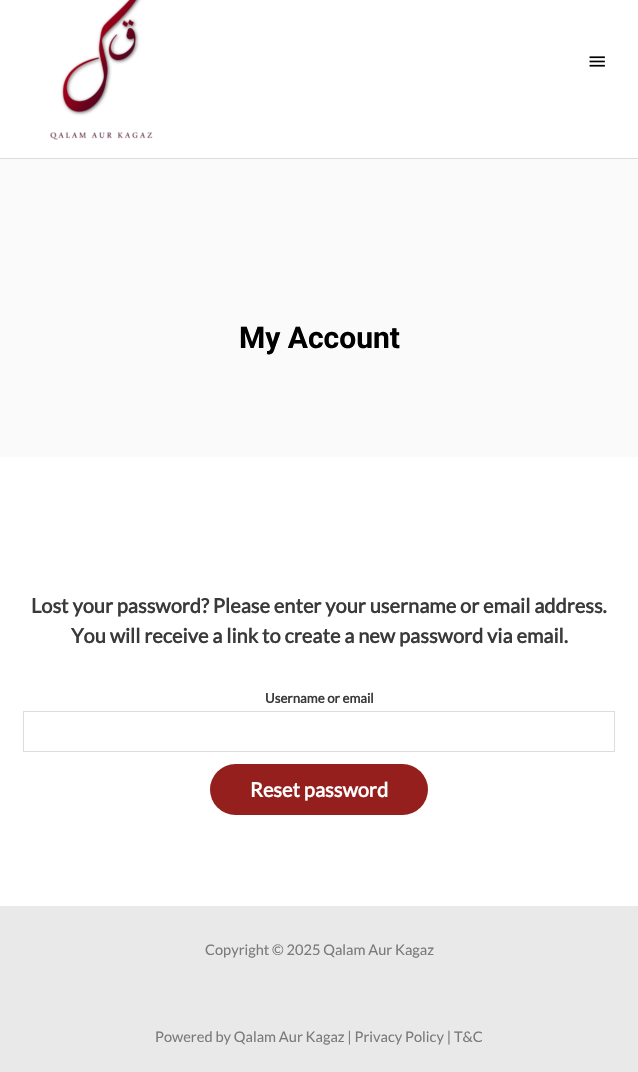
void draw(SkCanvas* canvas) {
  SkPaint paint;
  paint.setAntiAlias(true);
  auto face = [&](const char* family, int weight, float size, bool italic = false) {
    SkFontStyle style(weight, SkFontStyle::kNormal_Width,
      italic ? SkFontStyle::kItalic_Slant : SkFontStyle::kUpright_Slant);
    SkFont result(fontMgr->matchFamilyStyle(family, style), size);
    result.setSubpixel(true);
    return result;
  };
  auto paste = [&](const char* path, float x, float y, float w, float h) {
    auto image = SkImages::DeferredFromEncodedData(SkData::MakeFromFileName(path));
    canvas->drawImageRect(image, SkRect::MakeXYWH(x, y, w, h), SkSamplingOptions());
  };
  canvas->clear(0xfffafafa);
  paint.setColor(0xffffffff);
  canvas->drawRect(SkRect::MakeXYWH(0, 0, 638, 158), paint);
  paint.setColor(0xffdbdee0);
  canvas->drawRect(SkRect::MakeXYWH(0, 158, 638, 1), paint);
  paste("img/1.png", 50, 0, 103, 140);
  paste("img/2.png", 589, 56, 16, 11);
  paint.setColor(0xffffffff);
  canvas->drawRect(SkRect::MakeXYWH(0, 457, 638, 449), paint);
  paint.setStroke(true);
  paint.setStrokeWidth(1);
  paint.setColor(0xffdddddd);
  canvas->drawRect(SkRect::MakeXYWH(23.5f, 711.5f, 591, 40), paint);
  paint.setStroke(false);
  paint.setColor(0xff941f1d);
  canvas->drawRoundRect(SkRect::MakeXYWH(210, 764, 218, 51), 25.5f, 25.5f, paint);
  paint.setColor(0xffe9e9e9);
  canvas->drawRect(SkRect::MakeXYWH(0, 906, 638, 166), paint);
  auto f0 = face("Roboto", 700, 30);
  paint.setColor(0xff000000);
  canvas->drawString("My Account", 239, 348, f0, paint);
  auto f1 = face("Lato", 700, 20);
  paint.setColor(0xff3a3a3a);
  canvas->drawString("Lost your password? Please enter your username or email address.", 31, 613, f1, paint);
  canvas->drawString("You will receive a link to create a new password via email.", 71, 643, f1, paint);
  auto f2 = face("Lato", 700, 13.25f);
  canvas->drawString("Username or email", 265, 703, f2, paint);
  paint.setColor(0xffffffff);
  canvas->drawString("Reset password", 250, 797, f1, paint);
  auto f3 = face("Lato", 400, 14.6f);
  paint.setColor(0xff7a7a7a);
  canvas->drawString("Copyright © 2025 Qalam Aur Kagaz", 205, 955, f3, paint);
  canvas->drawString("Powered by Qalam Aur Kagaz | Privacy Policy | T&C", 155, 1042, f3, paint);
}
